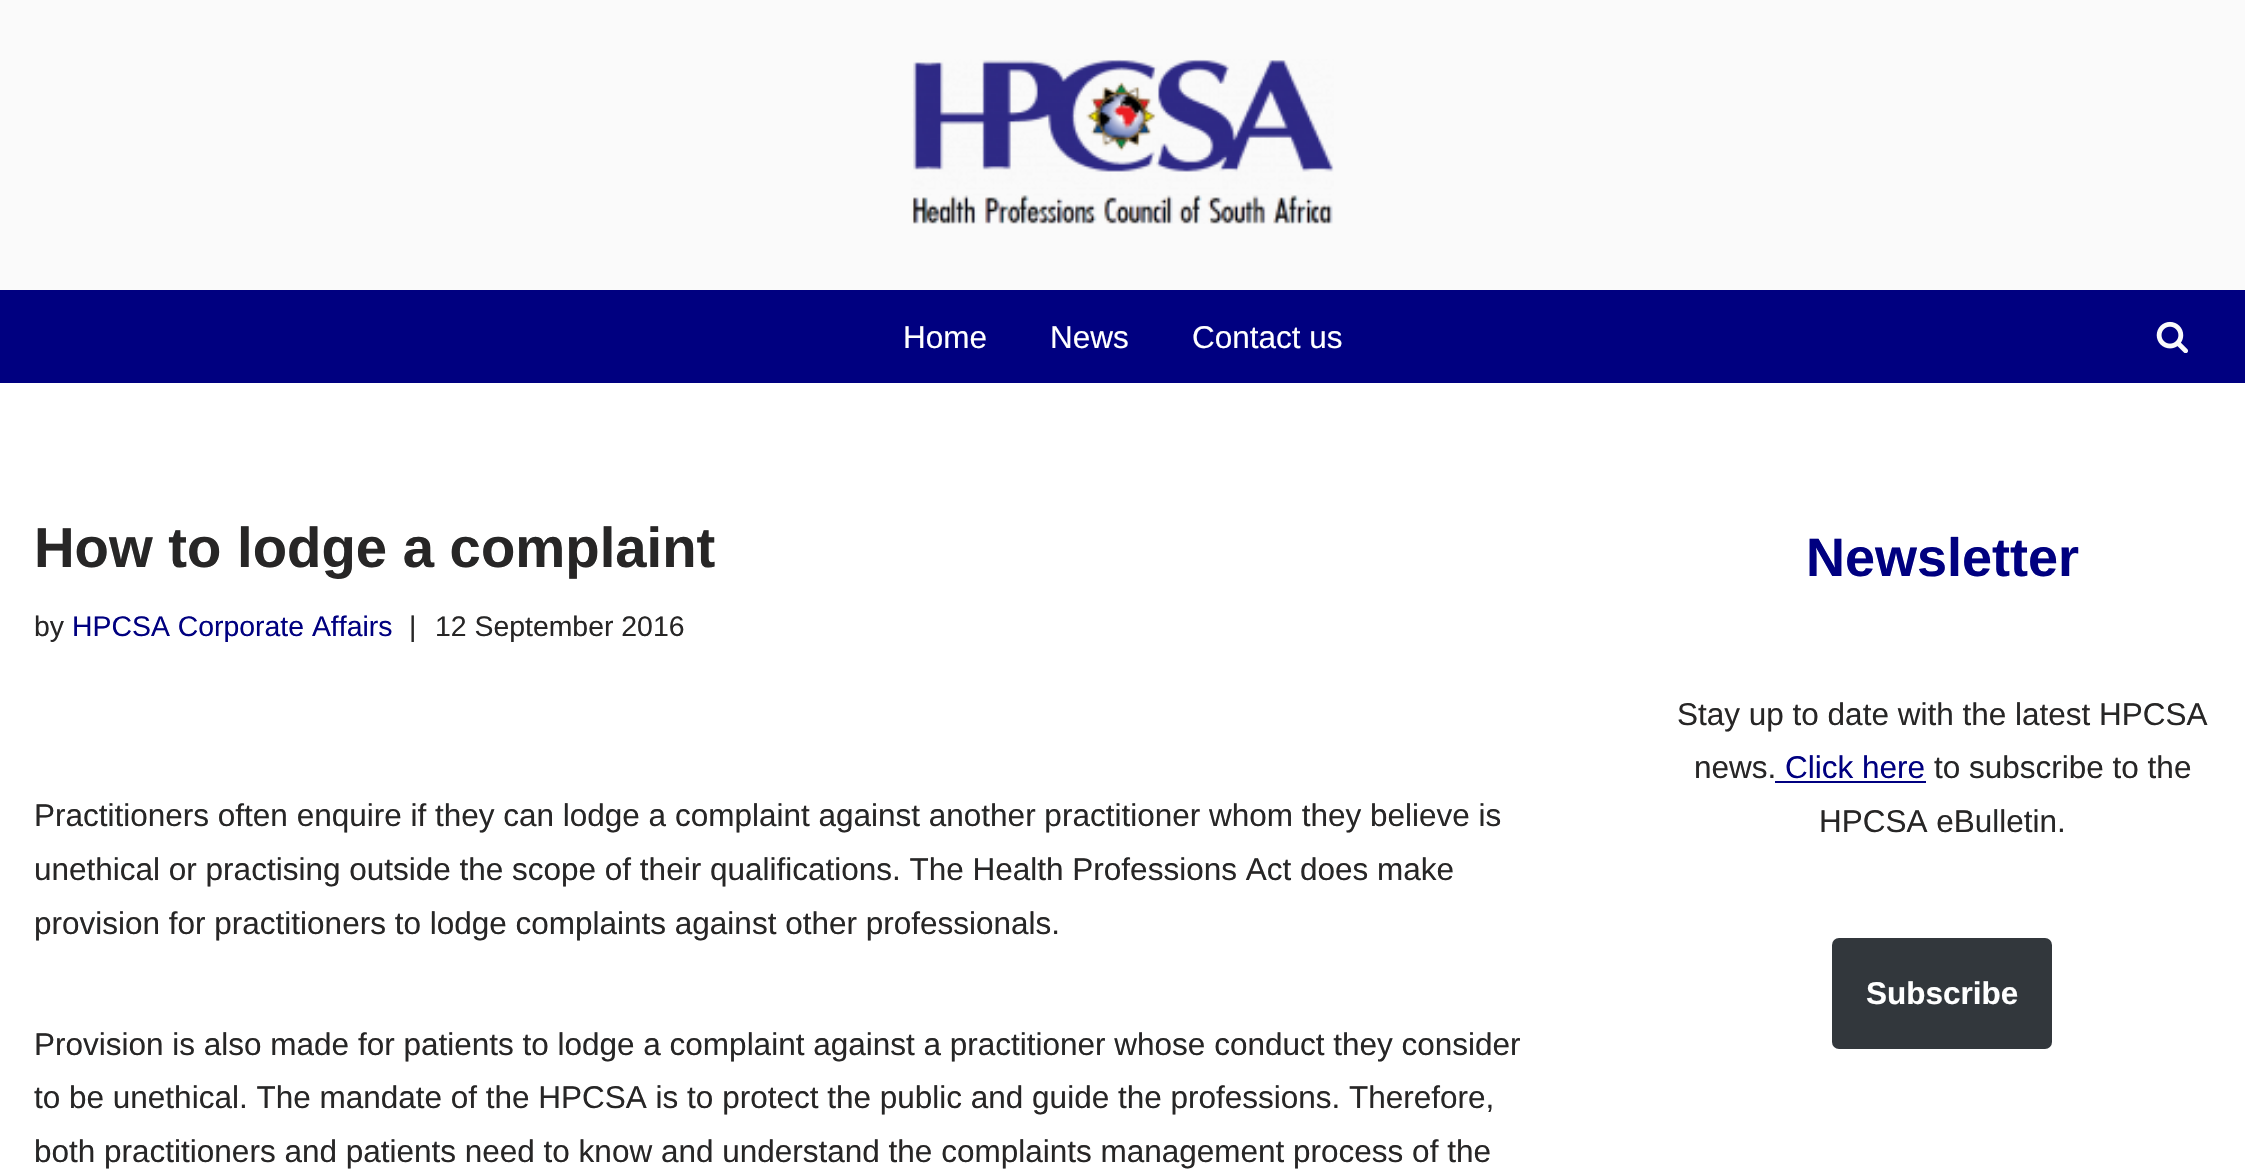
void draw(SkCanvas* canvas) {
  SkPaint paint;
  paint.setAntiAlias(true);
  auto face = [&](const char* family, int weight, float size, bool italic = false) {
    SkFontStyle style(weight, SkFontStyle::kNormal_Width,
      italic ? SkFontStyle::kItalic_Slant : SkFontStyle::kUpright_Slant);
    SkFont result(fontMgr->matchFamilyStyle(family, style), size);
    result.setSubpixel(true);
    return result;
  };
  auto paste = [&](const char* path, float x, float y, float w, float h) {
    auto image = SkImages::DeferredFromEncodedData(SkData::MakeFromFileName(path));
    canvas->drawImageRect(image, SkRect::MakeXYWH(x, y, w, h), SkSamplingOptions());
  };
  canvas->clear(0xffffffff);
  paint.setColor(0xfffafafa);
  canvas->drawRect(SkRect::MakeXYWH(0, 0, 2245, 290), paint);
  paste("img/1.png", 911, 59, 423, 165);
  paint.setColor(0xff000080);
  canvas->drawRect(SkRect::MakeXYWH(0, 290, 2245, 93), paint);
  paste("img/2.png", 2156, 321, 32, 32);
  canvas->drawRect(SkRect::MakeXYWH(1775, 781, 151, 2), paint);
  paint.setColor(0xff32373c);
  canvas->drawRoundRect(SkRect::MakeXYWH(1832, 938, 220, 111), 7, 7, paint);
  auto f0 = face("Liberation Sans", 400, 31.5f);
  paint.setColor(0xffffffff);
  {
    const struct { const char* s; float x, y; } items[] = {
      {"Home", 903, 348},
      {"News", 1050, 348},
      {"Contact us", 1192, 348},
    };
    for (auto [s, x, y] : items) {
      canvas->drawString(s, x, y, f0, paint);
    }
  }
  auto f1 = face("Liberation Sans", 700, 56.25f);
  paint.setColor(0xff272626);
  canvas->drawString("How to lodge a complaint", 34, 567, f1, paint);
  auto f2 = face("Liberation Sans", 400, 28.4f);
  canvas->drawString("by", 34, 636, f2, paint);
  paint.setColor(0xff000080);
  canvas->drawString("HPCSA Corporate Affairs", 72, 636, f2, paint);
  paint.setColor(0xff272626);
  canvas->drawString("|", 409, 636, f2, paint);
  canvas->drawString("12 September 2016", 435, 636, f2, paint);
  {
    const struct { const char* s; float x, y; } items[] = {
      {"Practitioners often enquire if they can lodge a complaint against another practitioner whom they believe is", 34, 826},
      {"unethical or practising outside the scope of their qualifications. The Health Professions Act does make", 34, 880},
      {"provision for practitioners to lodge complaints against other professionals.", 34, 934},
      {"Provision is also made for patients to lodge a complaint against a practitioner whose conduct they consider", 34, 1055},
      {"to be unethical. The mandate of the HPCSA is to protect the public and guide the professions. Therefore,", 34, 1108},
      {"both practitioners and patients need to know and understand the complaints management process of the", 34, 1162},
    };
    for (auto [s, x, y] : items) {
      canvas->drawString(s, x, y, f0, paint);
    }
  }
  auto f3 = face("Liberation Sans", 700, 54);
  paint.setColor(0xff000080);
  canvas->drawString("Newsletter", 1806, 576, f3, paint);
  paint.setColor(0xff272626);
  canvas->drawString("Stay up to date with the latest HPCSA", 1677, 725, f0, paint);
  canvas->drawString("news.", 1694, 778, f0, paint);
  paint.setColor(0xff000080);
  canvas->drawString("Click here", 1785, 778, f0, paint);
  paint.setColor(0xff272626);
  canvas->drawString("to subscribe to the", 1934, 778, f0, paint);
  canvas->drawString("HPCSA eBulletin.", 1819, 832, f0, paint);
  auto f4 = face("Liberation Sans", 700, 31.5f);
  paint.setColor(0xffffffff);
  canvas->drawString("Subscribe", 1866, 1004, f4, paint);
}
